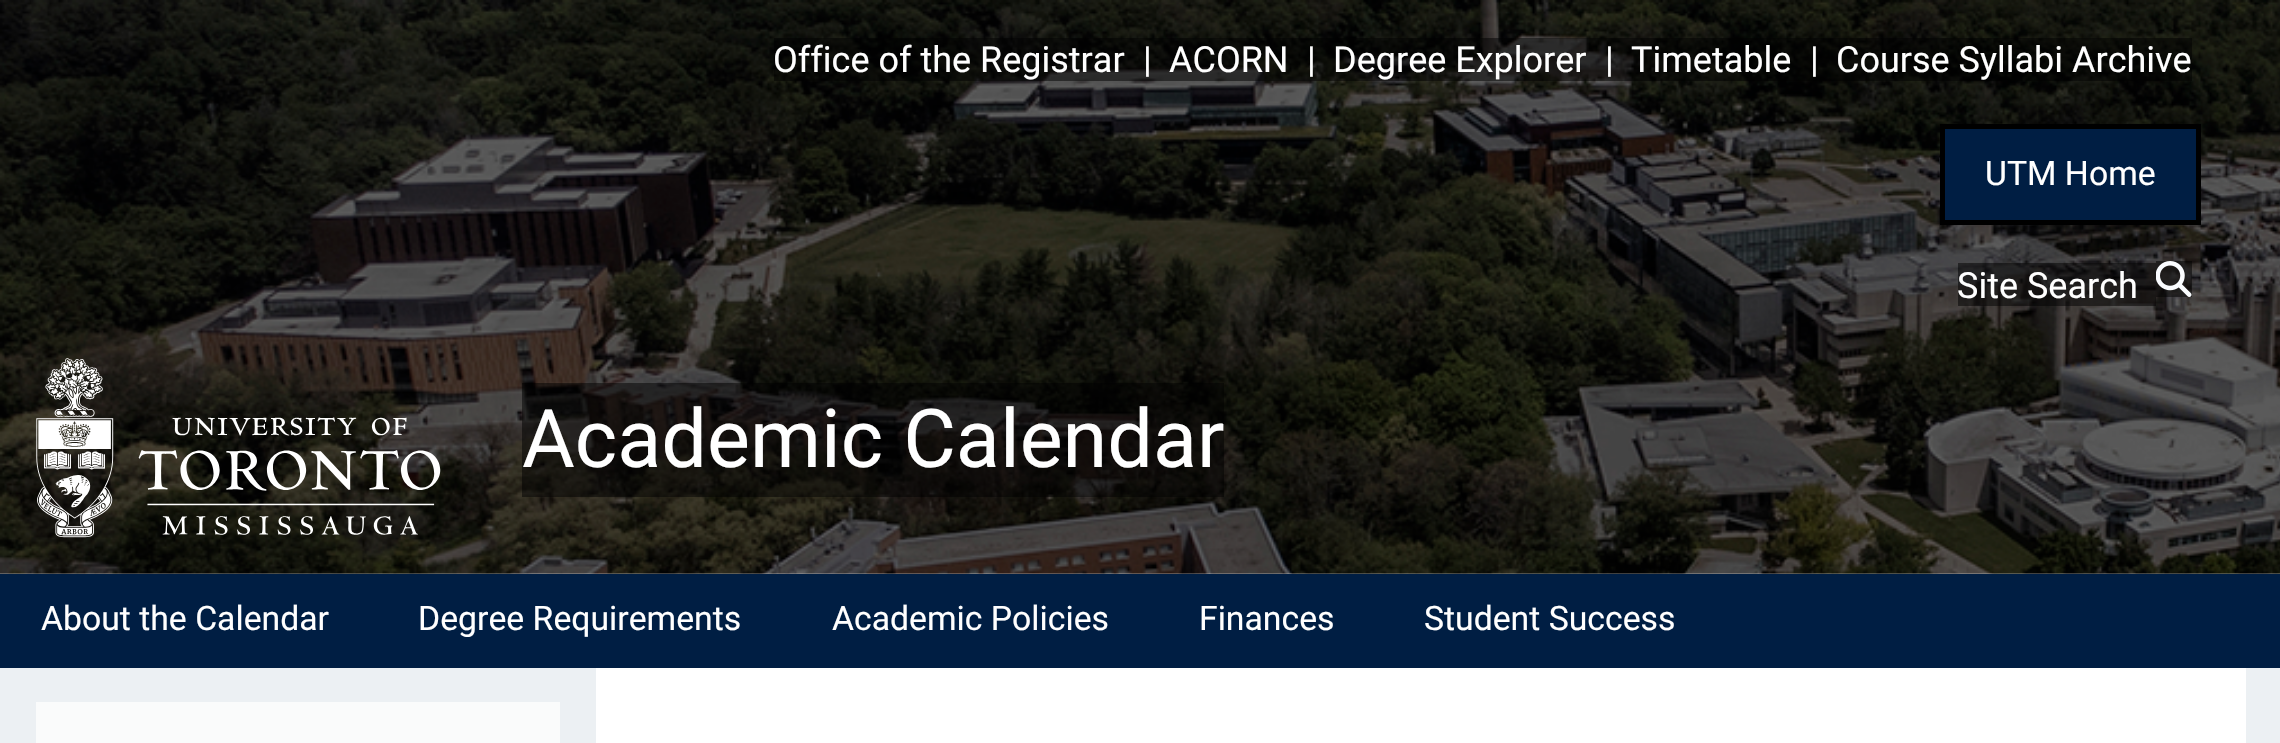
void draw(SkCanvas* canvas) {
  SkPaint paint;
  paint.setAntiAlias(true);
  auto face = [&](const char* family, int weight, float size, bool italic = false) {
    SkFontStyle style(weight, SkFontStyle::kNormal_Width,
      italic ? SkFontStyle::kItalic_Slant : SkFontStyle::kUpright_Slant);
    SkFont result(fontMgr->matchFamilyStyle(family, style), size);
    result.setSubpixel(true);
    return result;
  };
  auto paste = [&](const char* path, float x, float y, float w, float h) {
    auto image = SkImages::DeferredFromEncodedData(SkData::MakeFromFileName(path));
    canvas->drawImageRect(image, SkRect::MakeXYWH(x, y, w, h), SkSamplingOptions());
  };
  canvas->clear(0xffffffff);
  paste("img/1.png", 0, 0, 2280, 574);
  {
    const struct { float x, y, w, h; SkColor color; } items[] = {
      {774, 38, 351, 43, 0x80000000},
      {1125, 38, 45, 43, 0x80000000},
      {1170, 38, 119, 43, 0x80000000},
      {1289, 38, 45, 43, 0x80000000},
      {1334, 38, 252, 43, 0x80000000},
      {1631, 38, 160, 43, 0x80000000},
      {1791, 38, 45, 43, 0x80000000},
      {1836, 38, 356, 43, 0x80000000},
    };
    for (auto [x, y, w, h, color] : items) {
      paint.setColor(color);
      canvas->drawRect(SkRect::MakeXYWH(x, y, w, h), paint);
    }
  }
  paint.setColor(0xff001e43);
  canvas->drawRect(SkRect::MakeXYWH(1942.5f, 126.5f, 256, 96), paint);
  paint.setStroke(true);
  paint.setStrokeWidth(5);
  paint.setColor(0xff000000);
  canvas->drawRect(SkRect::MakeXYWH(1942.5f, 126.5f, 256, 96), paint);
  paint.setStroke(false);
  paint.setColor(0x80000000);
  canvas->drawRect(SkRect::MakeXYWH(1958, 263, 198, 43), paint);
  canvas->drawRect(SkRect::MakeXYWH(2156, 261, 36, 36), paint);
  paste("img/2.png", 2156, 261, 36, 36);
  paste("img/3.png", 36, 358, 405, 180);
  {
    const struct { float x, y, w, h; SkColor color; } items[] = {
      {522, 383, 702, 114, 0x80000000},
      {0, 574, 2280, 94, 0xff001e43},
      {0, 668, 2280, 75, 0xffecf0f3},
      {36, 702, 524, 41, 0xfffafbfb},
      {596, 668, 1650, 75, 0xffffffff},
    };
    for (auto [x, y, w, h, color] : items) {
      paint.setColor(color);
      canvas->drawRect(SkRect::MakeXYWH(x, y, w, h), paint);
    }
  }
  auto f0 = face("Roboto", 400, 36);
  {
    const struct { const char* s; float x, y; } items[] = {
      {"Office of the Registrar", 773, 72},
      {"|", 1143, 72},
      {"ACORN", 1169, 72},
      {"|", 1307, 72},
      {"Degree Explorer", 1333, 72},
    };
    for (auto [s, x, y] : items) {
      canvas->drawString(s, x, y, f0, paint);
    }
  }
  paint.setColor(0x80000000);
  canvas->drawRect(SkRect::MakeXYWH(1586, 38, 45, 43), paint);
  paint.setColor(0xffffffff);
  {
    const struct { const char* s; float x, y; } items[] = {
      {"|", 1605, 72},
      {"Timetable", 1631, 72},
      {"|", 1810, 72},
      {"Course Syllabi Archive", 1836, 72},
    };
    for (auto [s, x, y] : items) {
      canvas->drawString(s, x, y, f0, paint);
    }
  }
  auto f1 = face("Roboto", 400, 33.75f);
  canvas->drawString("UTM Home", 1985, 185, f1, paint);
  canvas->drawString("Site Search", 1957, 298, f0, paint);
  auto f2 = face("Roboto", 400, 81);
  canvas->drawString("Academic Calendar", 522, 467, f2, paint);
  {
    const struct { const char* s; float x, y; } items[] = {
      {"About the Calendar", 41, 630},
      {"Degree Requirements", 418, 630},
      {"Academic Policies", 832, 630},
      {"Finances", 1199, 630},
      {"Student Success", 1424, 630},
    };
    for (auto [s, x, y] : items) {
      canvas->drawString(s, x, y, f1, paint);
    }
  }
}
